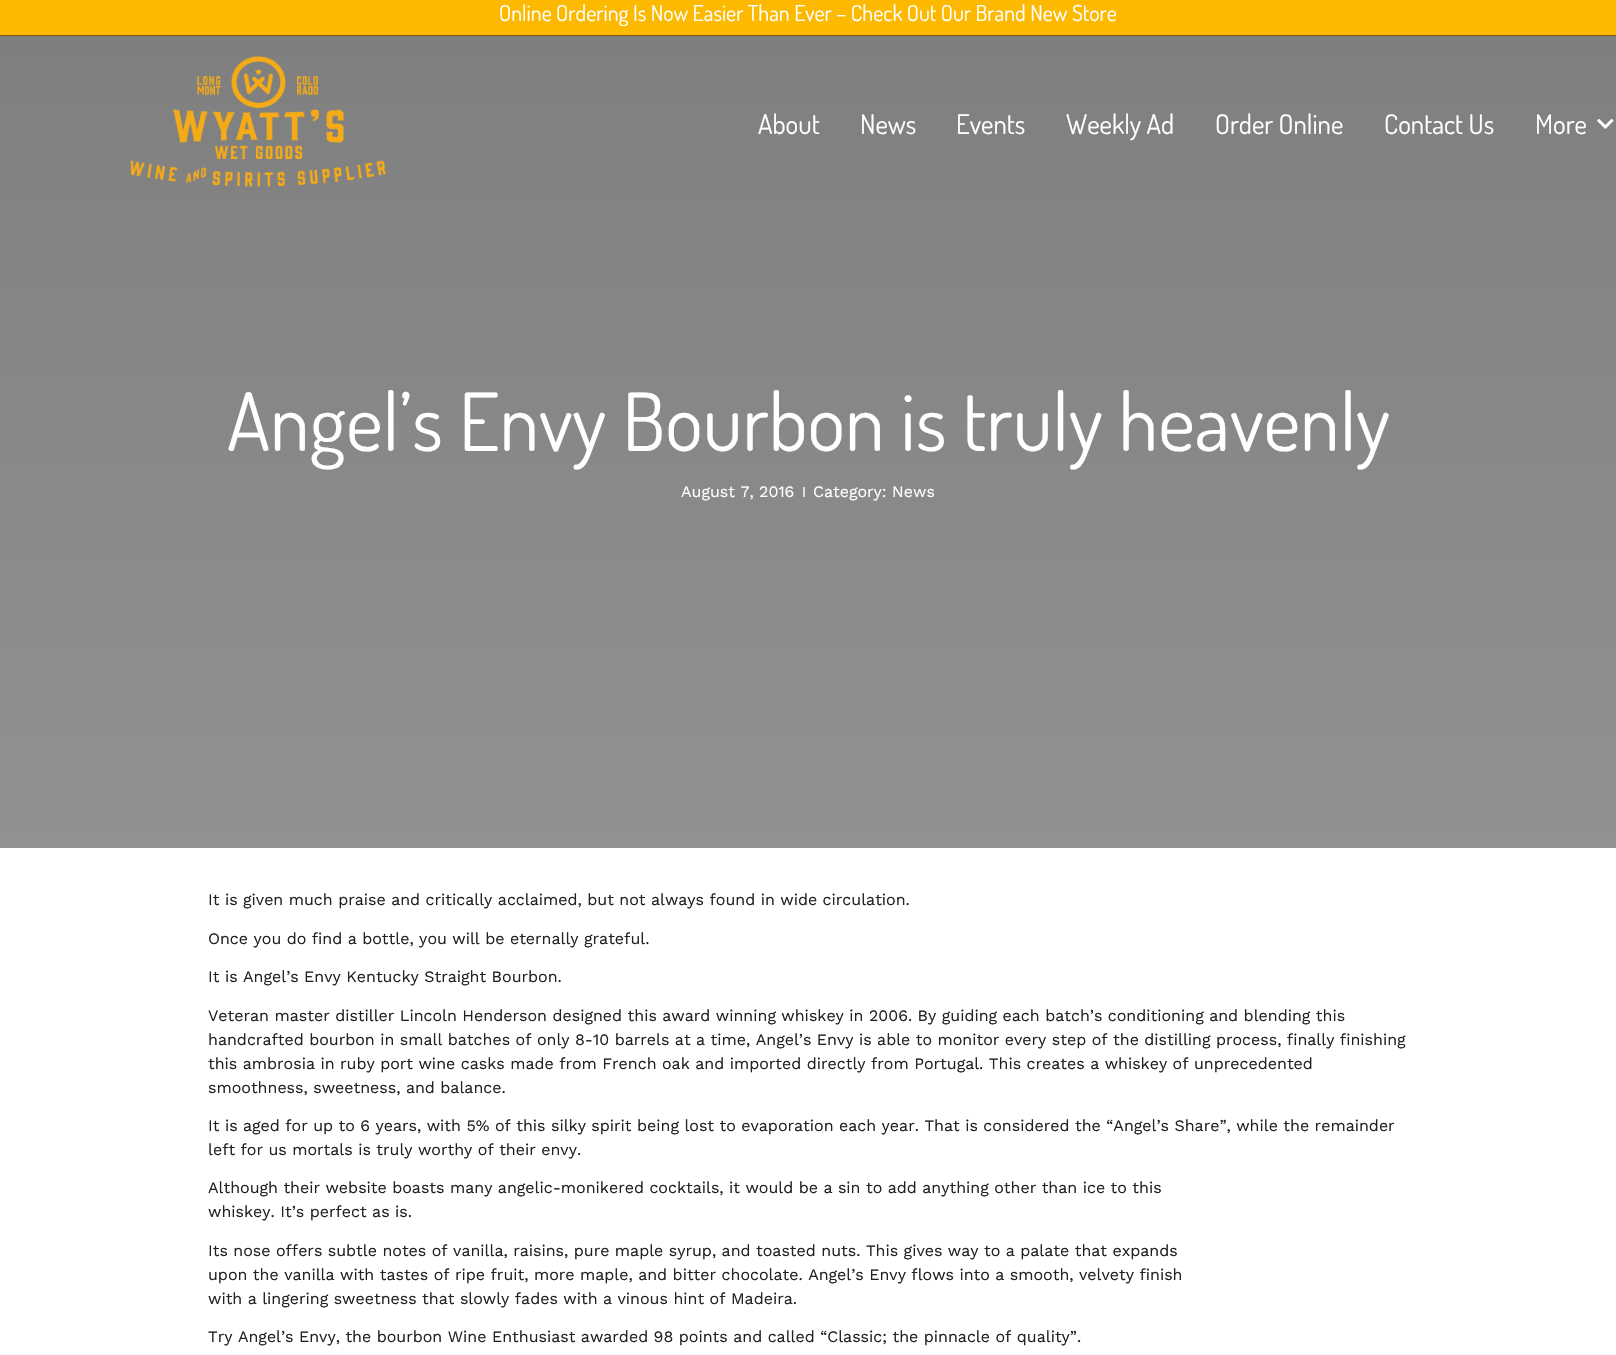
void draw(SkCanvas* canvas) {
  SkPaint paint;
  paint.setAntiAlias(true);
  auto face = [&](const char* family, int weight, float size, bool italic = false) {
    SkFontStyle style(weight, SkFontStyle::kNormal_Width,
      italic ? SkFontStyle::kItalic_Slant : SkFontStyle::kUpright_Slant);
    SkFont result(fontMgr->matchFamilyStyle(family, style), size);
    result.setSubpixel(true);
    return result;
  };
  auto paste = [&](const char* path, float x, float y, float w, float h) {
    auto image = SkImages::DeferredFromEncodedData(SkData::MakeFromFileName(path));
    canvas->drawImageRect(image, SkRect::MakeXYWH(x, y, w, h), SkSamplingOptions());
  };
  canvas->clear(0xffffffff);
  paint.setColor(0xfffcb900);
  canvas->drawRect(SkRect::MakeXYWH(0, 0, 1616, 36), paint);
  {
    const SkColor colors[] = {0x80000000, 0x6e000000};
    const float stops[] = {0, 1};
    const SkPoint ends[] = {{808, 35}, {808, 848}};
    paint.setShader(SkGradientShader::MakeLinear(ends, colors, stops, 2, SkTileMode::kClamp));
    paint.setAlpha(255);
  }
  canvas->drawRect(SkRect::MakeXYWH(0, 35, 1616, 813), paint);
  paste("img/1.png", 130, 56, 257, 131);
  paste("img/2.png", 1597, 119, 17, 10);
  paint.setShader(nullptr);
  paint.setColor(0xffdddddd);
  canvas->drawRect(SkRect::MakeXYWH(803, 487, 2, 10), paint);
  auto f0 = face("Dosis", 400, 22);
  paint.setColor(0xffffffff);
  canvas->drawString("Online Ordering Is Now Easier Than Ever – Check Out Our Brand New Store", 499, 21, f0, paint);
  auto f1 = face("Dosis", 400, 27);
  {
    const struct { const char* s; float x, y; } items[] = {
      {"About", 758, 134},
      {"News", 860, 134},
      {"Events", 956, 134},
      {"Weekly Ad", 1066, 134},
      {"Order Online", 1215, 134},
      {"Contact Us", 1384, 134},
      {"More", 1535, 134},
    };
    for (auto [s, x, y] : items) {
      canvas->drawString(s, x, y, f1, paint);
    }
  }
  auto f2 = face("Dosis", 400, 80);
  canvas->drawString("Angel’s Envy Bourbon is truly heavenly", 227, 451, f2, paint);
  auto f3 = face("Work Sans", 400, 16);
  canvas->drawString("August 7, 2016", 681, 497, f3, paint);
  canvas->drawString("Category: News", 813, 497, f3, paint);
  paint.setColor(0xff222222);
  {
    const struct { const char* s; float x, y; } items[] = {
      {"It is given much praise and critically acclaimed, but not always found in wide circulation.", 208, 905},
      {"Once you do find a bottle, you will be eternally grateful.", 208, 944},
      {"It is Angel’s Envy Kentucky Straight Bourbon.", 208, 982},
      {"Veteran master distiller Lincoln Henderson designed this award winning whiskey in 2006. By guiding each batch’s conditioning and blending this", 208, 1021},
      {"handcrafted bourbon in small batches of only 8-10 barrels at a time, Angel’s Envy is able to monitor every step of the distilling process, finally finishing", 208, 1045},
      {"this ambrosia in ruby port wine casks made from French oak and imported directly from Portugal. This creates a whiskey of unprecedented", 208, 1069},
      {"smoothness, sweetness, and balance.", 208, 1093},
      {"It is aged for up to 6 years, with 5% of this silky spirit being lost to evaporation each year. That is considered the “Angel’s Share”, while the remainder", 208, 1131},
      {"left for us mortals is truly worthy of their envy.", 208, 1155},
      {"Although their website boasts many angelic-monikered cocktails, it would be a sin to add anything other than ice to this", 208, 1193},
      {"whiskey. It’s perfect as is.", 208, 1217},
      {"Its nose offers subtle notes of vanilla, raisins, pure maple syrup, and toasted nuts. This gives way to a palate that expands", 208, 1256},
      {"upon the vanilla with tastes of ripe fruit, more maple, and bitter chocolate. Angel’s Envy flows into a smooth, velvety finish", 208, 1280},
      {"with a lingering sweetness that slowly fades with a vinous hint of Madeira.", 208, 1304},
      {"Try Angel’s Envy, the bourbon Wine Enthusiast awarded 98 points and called “Classic; the pinnacle of quality”.", 208, 1342},
    };
    for (auto [s, x, y] : items) {
      canvas->drawString(s, x, y, f3, paint);
    }
  }
}
